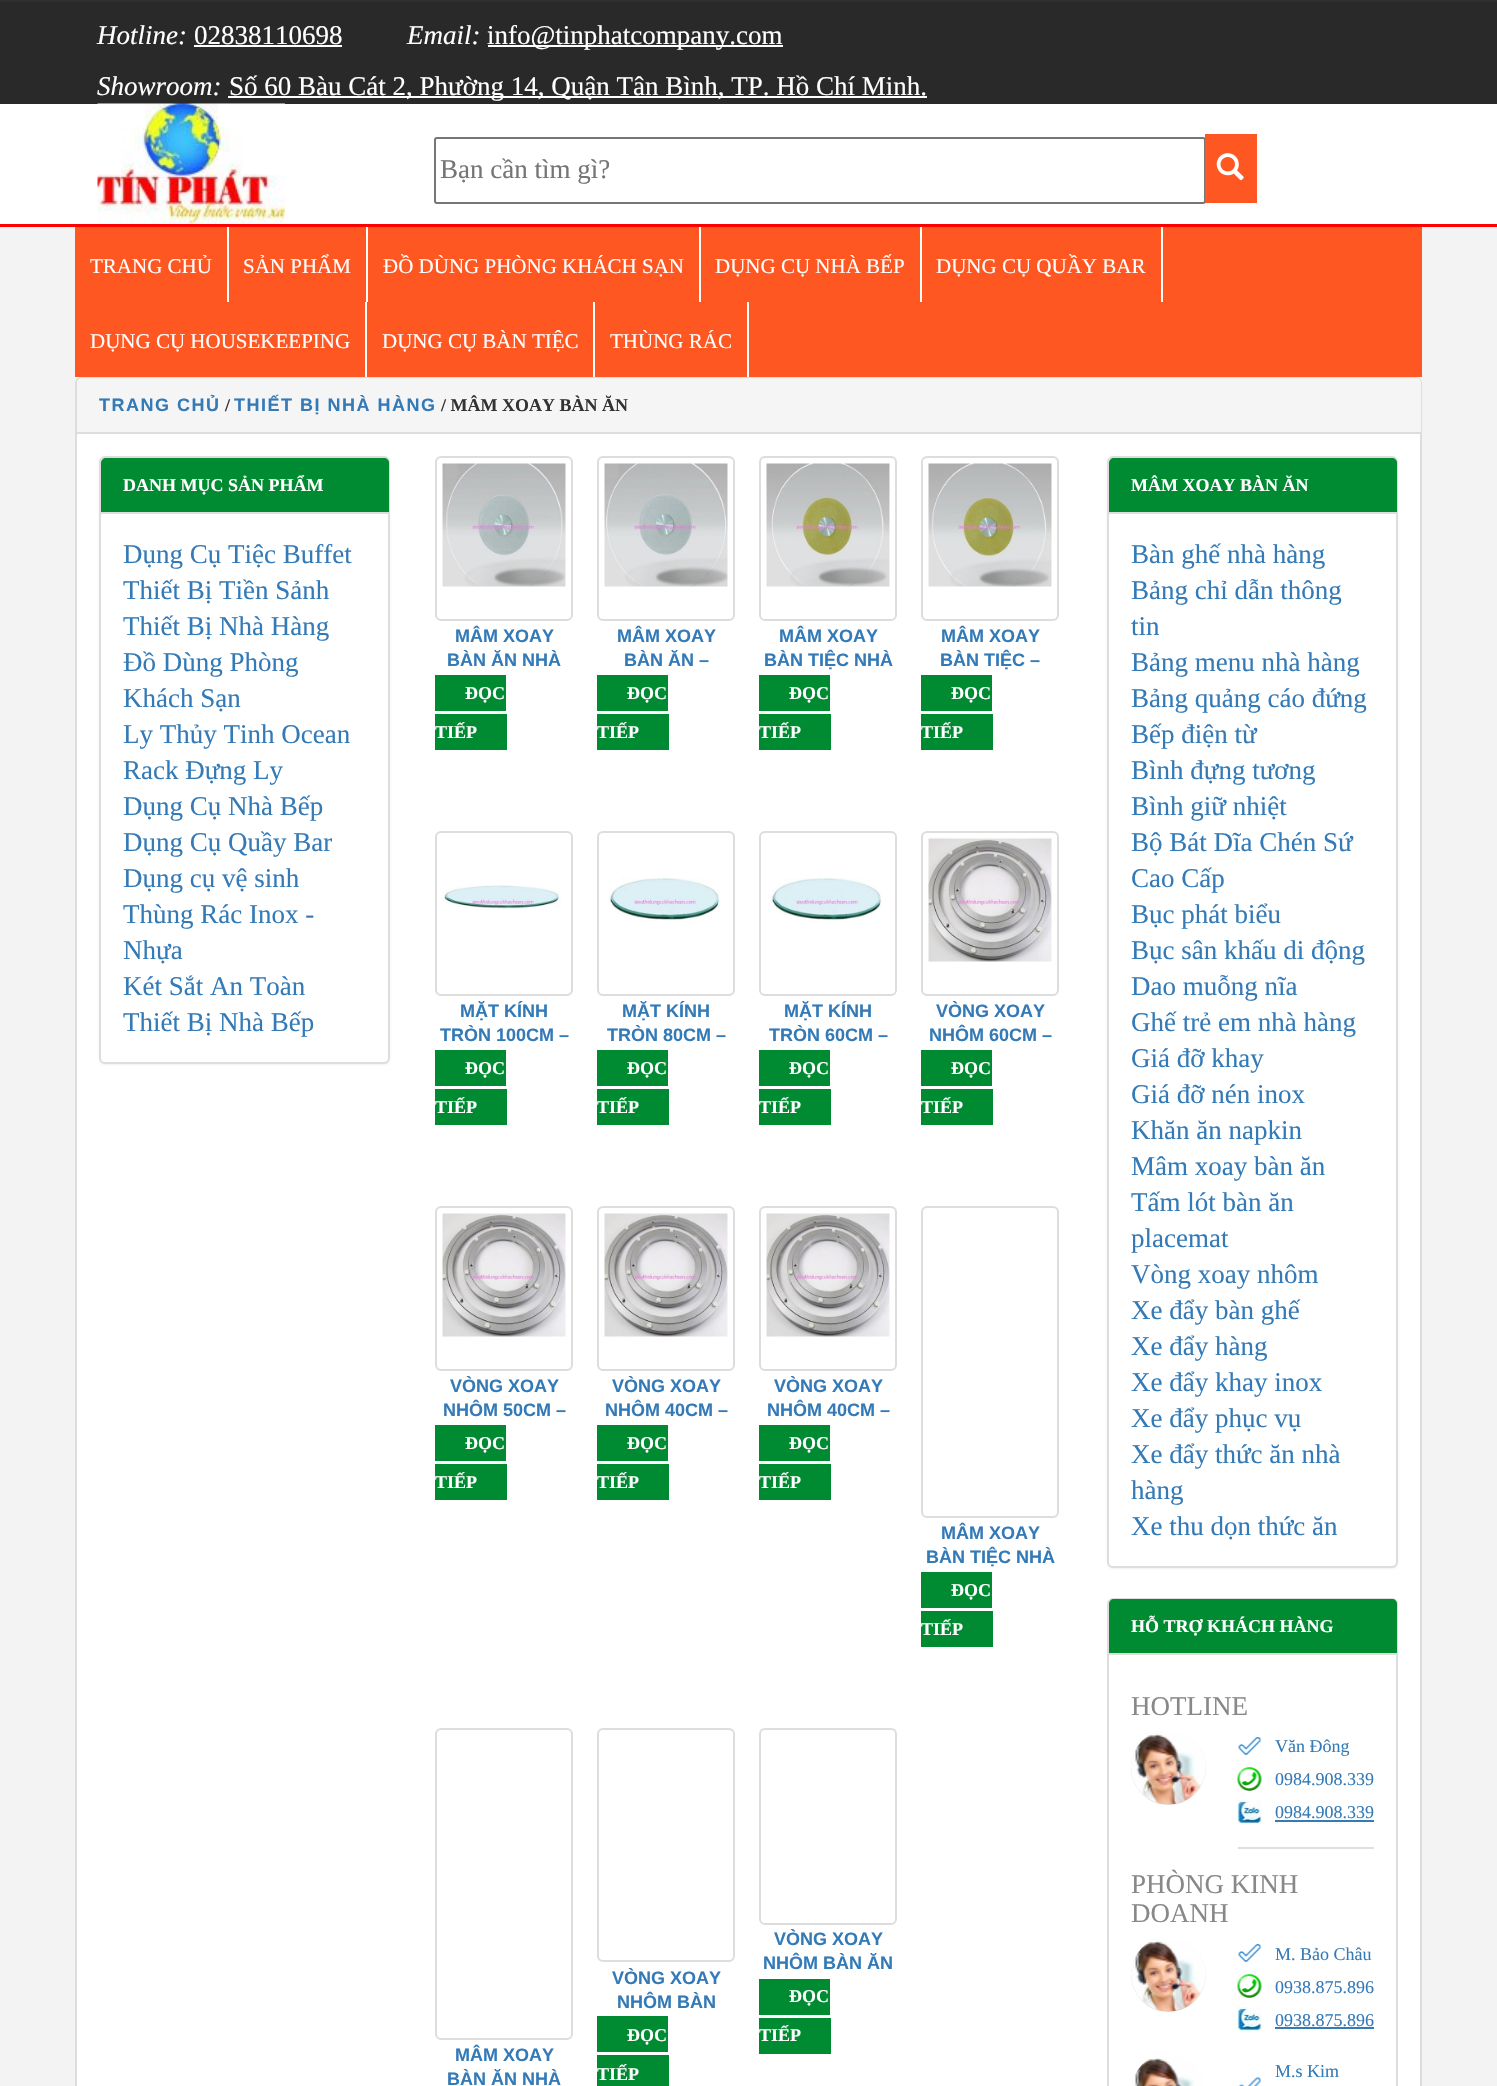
void draw(SkCanvas* canvas) {
  SkPaint paint;
  paint.setAntiAlias(true);
  auto face = [&](const char* family, int weight, float size, bool italic = false) {
    SkFontStyle style(weight, SkFontStyle::kNormal_Width,
      italic ? SkFontStyle::kItalic_Slant : SkFontStyle::kUpright_Slant);
    SkFont result(fontMgr->matchFamilyStyle(family, style), size);
    result.setSubpixel(true);
    return result;
  };
  auto writeSpaced = [&](const char* s, float x, float y, const SkFont& font, const SkPaint& ink, float letter, float word) {
    std::vector<SkGlyphID> glyphs(font.countText(s, strlen(s), SkTextEncoding::kUTF8));
    std::vector<float> xs(glyphs.size());
    font.textToGlyphs(s, strlen(s), SkTextEncoding::kUTF8, glyphs);
    font.getXPos(glyphs, xs, x);
    float extra = 0;
    for (size_t i = 0; i < glyphs.size(); i++) {
      xs[i] += extra;
      extra += letter + word * (glyphs[i] == font.unicharToGlyph(' '));
    }
    canvas->drawTextBlob(SkTextBlob::MakeFromPosHGlyphs(glyphs, xs, y, font), 0, 0, ink);
  };
  auto paste = [&](const char* path, float x, float y, float w, float h) {
    auto image = SkImages::DeferredFromEncodedData(SkData::MakeFromFileName(path));
    canvas->drawImageRect(image, SkRect::MakeXYWH(x, y, w, h), SkSamplingOptions());
  };
  auto shape = [&](const char* data, bool evenOdd = false) {
    SkPath result = *SkParsePath::FromSVGString(data);
    if (evenOdd) result.setFillType(SkPathFillType::kEvenOdd);
    return result;
  };
  canvas->clear(0xfff3f3f3);
  {
    const struct { float x, y, w, h; SkColor color; } items[] = {
      {0, 2, 1497, 102, 0xff292929},
      {0, 0, 1497, 2, 0xff2f2e2a},
      {194, 45, 148, 2, 0xffffffff},
      {488, 45, 295, 2, 0xffffffff},
      {228, 96, 699, 2, 0xffffffff},
      {0, 104, 1497, 120, 0xffffffff},
      {0, 224, 1497, 3, 0xffff0000},
    };
    for (auto [x, y, w, h, color] : items) {
      paint.setColor(color);
      canvas->drawRect(SkRect::MakeXYWH(x, y, w, h), paint);
    }
  }
  paste("img/1.png", 97, 103, 188, 121);
  paint.setStroke(true);
  paint.setStrokeWidth(2);
  paint.setColor(0xff767676);
  canvas->drawRoundRect(SkRect::MakeXYWH(435, 138, 770, 65), 2, 2, paint);
  paint.setStroke(false);
  paint.setColor(0xffff5722);
  canvas->drawRect(SkRect::MakeXYWH(1205, 134, 52, 69), paint);
  paste("img/2.png", 1216, 153, 28, 28);
  {
    const struct { float x, y, w, h; SkColor color; } items[] = {
      {75, 227, 1347, 150, 0xffff5721},
      {227, 227, 2, 75, 0xffffffff},
      {366, 227, 2, 75, 0xffffffff},
      {699, 227, 2, 75, 0xffffffff},
      {920, 227, 2, 75, 0xffffffff},
      {1161, 227, 2, 75, 0xffffffff},
      {365, 302, 2, 75, 0xffffffff},
      {593, 302, 2, 75, 0xffffffff},
      {747, 302, 2, 75, 0xffffffff},
    };
    for (auto [x, y, w, h, color] : items) {
      paint.setColor(color);
      canvas->drawRect(SkRect::MakeXYWH(x, y, w, h), paint);
    }
  }
  canvas->drawRoundRect(SkRect::MakeXYWH(76, 378, 1345, 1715), 5, 5, paint);
  paint.setStroke(true);
  paint.setColor(0xffdddddd);
  canvas->drawRoundRect(SkRect::MakeXYWH(76, 378, 1345, 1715), 5, 5, paint);
  paint.setStroke(false);
  paint.setColor(0xfff5f5f5);
  canvas->drawPath(shape("M82 378H1416C1419 378 1421 380 1421 383V434H77V383C77 380 79 378 82 378Z"), paint);
  paint.setColor(0xffdddddd);
  canvas->drawRect(SkRect::MakeXYWH(77, 432, 1344, 2), paint);
  paint.setColor(0x0d000000);
  paint.setMaskFilter(SkMaskFilter::MakeBlur(kNormal_SkBlurStyle, 1));
  canvas->drawRoundRect(SkRect::MakeXYWH(99, 458, 291, 607), 6, 6, paint);
  paint.setMaskFilter(nullptr);
  paint.setColor(0xffffffff);
  canvas->drawRoundRect(SkRect::MakeXYWH(100, 457, 289, 606), 5, 5, paint);
  paint.setStroke(true);
  paint.setColor(0xffdddddd);
  canvas->drawRoundRect(SkRect::MakeXYWH(100, 457, 289, 606), 5, 5, paint);
  paint.setStroke(false);
  paint.setColor(0xff008a32);
  canvas->drawPath(shape("M106 458H384C387 458 389 460 389 463V513H101V463C101 460 103 458 106 458Z"), paint);
  paint.setColor(0xffdddddd);
  canvas->drawRect(SkRect::MakeXYWH(101, 512, 288, 2), paint);
  paint.setStroke(true);
  canvas->drawRoundRect(SkRect::MakeXYWH(436, 457, 136, 163), 5, 5, paint);
  paste("img/3.png", 442, 463, 124, 124);
  paint.setStroke(false);
  paint.setColor(0xff008a32);
  canvas->drawRect(SkRect::MakeXYWH(435, 675, 71, 36), paint);
  canvas->drawRect(SkRect::MakeXYWH(435, 714, 72, 36), paint);
  paint.setStroke(true);
  paint.setColor(0xffdddddd);
  canvas->drawRoundRect(SkRect::MakeXYWH(598, 457, 136, 163), 5, 5, paint);
  paste("img/4.png", 604, 463, 124, 124);
  paint.setStroke(false);
  paint.setColor(0xff008a32);
  canvas->drawRect(SkRect::MakeXYWH(597, 675, 71, 36), paint);
  canvas->drawRect(SkRect::MakeXYWH(597, 714, 72, 36), paint);
  paint.setStroke(true);
  paint.setColor(0xffdddddd);
  canvas->drawRoundRect(SkRect::MakeXYWH(760, 457, 136, 163), 5, 5, paint);
  paste("img/5.png", 766, 463, 124, 124);
  paint.setStroke(false);
  paint.setColor(0xff008a32);
  canvas->drawRect(SkRect::MakeXYWH(759, 675, 71, 36), paint);
  canvas->drawRect(SkRect::MakeXYWH(759, 714, 72, 36), paint);
  paint.setStroke(true);
  paint.setColor(0xffdddddd);
  canvas->drawRoundRect(SkRect::MakeXYWH(922, 457, 136, 163), 5, 5, paint);
  paste("img/6.png", 928, 463, 124, 124);
  paint.setStroke(false);
  paint.setColor(0xff008a32);
  canvas->drawRect(SkRect::MakeXYWH(921, 675, 71, 36), paint);
  canvas->drawRect(SkRect::MakeXYWH(921, 714, 72, 36), paint);
  paint.setStroke(true);
  paint.setColor(0xffdddddd);
  canvas->drawRoundRect(SkRect::MakeXYWH(436, 832, 136, 163), 5, 5, paint);
  paste("img/7.png", 442, 885, 119, 25);
  paint.setStroke(false);
  paint.setColor(0xff008a32);
  canvas->drawRect(SkRect::MakeXYWH(435, 1050, 71, 36), paint);
  canvas->drawRect(SkRect::MakeXYWH(435, 1089, 72, 36), paint);
  paint.setStroke(true);
  paint.setColor(0xffdddddd);
  canvas->drawRoundRect(SkRect::MakeXYWH(598, 832, 136, 163), 5, 5, paint);
  paste("img/8.png", 608, 878, 112, 43);
  paint.setStroke(false);
  paint.setColor(0xff008a32);
  canvas->drawRect(SkRect::MakeXYWH(597, 1050, 71, 36), paint);
  canvas->drawRect(SkRect::MakeXYWH(597, 1089, 72, 36), paint);
  paint.setStroke(true);
  paint.setColor(0xffdddddd);
  canvas->drawRoundRect(SkRect::MakeXYWH(760, 832, 136, 163), 5, 5, paint);
  paste("img/8.png", 770, 878, 112, 43);
  paint.setStroke(false);
  paint.setColor(0xff008a32);
  canvas->drawRect(SkRect::MakeXYWH(759, 1050, 71, 36), paint);
  canvas->drawRect(SkRect::MakeXYWH(759, 1089, 72, 36), paint);
  paint.setStroke(true);
  paint.setColor(0xffdddddd);
  canvas->drawRoundRect(SkRect::MakeXYWH(922, 832, 136, 163), 5, 5, paint);
  paste("img/9.png", 928, 838, 124, 124);
  paint.setStroke(false);
  paint.setColor(0xff008a32);
  canvas->drawRect(SkRect::MakeXYWH(921, 1050, 71, 36), paint);
  canvas->drawRect(SkRect::MakeXYWH(921, 1089, 72, 36), paint);
  paint.setStroke(true);
  paint.setColor(0xffdddddd);
  canvas->drawRoundRect(SkRect::MakeXYWH(436, 1207, 136, 163), 5, 5, paint);
  paste("img/9.png", 442, 1213, 124, 124);
  paint.setStroke(false);
  paint.setColor(0xff008a32);
  canvas->drawRect(SkRect::MakeXYWH(435, 1425, 71, 36), paint);
  canvas->drawRect(SkRect::MakeXYWH(435, 1464, 72, 36), paint);
  paint.setStroke(true);
  paint.setColor(0xffdddddd);
  canvas->drawRoundRect(SkRect::MakeXYWH(598, 1207, 136, 163), 5, 5, paint);
  paste("img/9.png", 604, 1213, 124, 124);
  paint.setStroke(false);
  paint.setColor(0xff008a32);
  canvas->drawRect(SkRect::MakeXYWH(597, 1425, 71, 36), paint);
  canvas->drawRect(SkRect::MakeXYWH(597, 1464, 72, 36), paint);
  paint.setStroke(true);
  paint.setColor(0xffdddddd);
  canvas->drawRoundRect(SkRect::MakeXYWH(760, 1207, 136, 163), 5, 5, paint);
  paste("img/9.png", 766, 1213, 124, 124);
  paint.setStroke(false);
  paint.setColor(0xff008a32);
  canvas->drawRect(SkRect::MakeXYWH(759, 1425, 71, 36), paint);
  canvas->drawRect(SkRect::MakeXYWH(759, 1464, 72, 36), paint);
  paint.setStroke(true);
  paint.setColor(0xffdddddd);
  canvas->drawRoundRect(SkRect::MakeXYWH(922, 1207, 136, 310), 5, 5, paint);
  paint.setStroke(false);
  paint.setColor(0xff008a32);
  canvas->drawRect(SkRect::MakeXYWH(921, 1572, 71, 36), paint);
  canvas->drawRect(SkRect::MakeXYWH(921, 1611, 72, 36), paint);
  paint.setStroke(true);
  paint.setColor(0xffdddddd);
  canvas->drawRoundRect(SkRect::MakeXYWH(436, 1729, 136, 310), 5, 5, paint);
  canvas->drawRoundRect(SkRect::MakeXYWH(598, 1729, 136, 232), 5, 5, paint);
  paint.setStroke(false);
  paint.setColor(0xff008a32);
  canvas->drawRect(SkRect::MakeXYWH(597, 2016, 71, 36), paint);
  canvas->drawRect(SkRect::MakeXYWH(597, 2055, 72, 31), paint);
  paint.setStroke(true);
  paint.setColor(0xffdddddd);
  canvas->drawRoundRect(SkRect::MakeXYWH(760, 1729, 136, 195), 5, 5, paint);
  paint.setStroke(false);
  paint.setColor(0xff008a32);
  canvas->drawRect(SkRect::MakeXYWH(759, 1979, 71, 36), paint);
  canvas->drawRect(SkRect::MakeXYWH(759, 2018, 72, 36), paint);
  paint.setColor(0x0d000000);
  paint.setMaskFilter(SkMaskFilter::MakeBlur(kNormal_SkBlurStyle, 1));
  canvas->drawRoundRect(SkRect::MakeXYWH(1107, 458, 291, 1111), 6, 6, paint);
  paint.setMaskFilter(nullptr);
  paint.setColor(0xffffffff);
  canvas->drawRoundRect(SkRect::MakeXYWH(1108, 457, 289, 1110), 5, 5, paint);
  paint.setStroke(true);
  paint.setColor(0xffdddddd);
  canvas->drawRoundRect(SkRect::MakeXYWH(1108, 457, 289, 1110), 5, 5, paint);
  paint.setStroke(false);
  paint.setColor(0xff008a32);
  canvas->drawPath(shape("M1114 458H1392C1395 458 1397 460 1397 463V513H1109V463C1109 460 1111 458 1114 458Z"), paint);
  paint.setColor(0xffdddddd);
  canvas->drawRect(SkRect::MakeXYWH(1109, 512, 288, 2), paint);
  paint.setStroke(true);
  canvas->drawRoundRect(SkRect::MakeXYWH(1108, 1599, 289, 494), 5, 5, paint);
  paint.setStroke(false);
  paint.setColor(0xff008a32);
  canvas->drawPath(shape("M1114 1599H1392C1395 1599 1397 1601 1397 1604V1655H1109V1604C1109 1601 1111 1599 1114 1599Z"), paint);
  paint.setColor(0xffdddddd);
  canvas->drawRect(SkRect::MakeXYWH(1109, 1653, 288, 2), paint);
  paint.setColor(0xffd9d9d9);
  canvas->drawCircle(1168.5f, 1767.5f, 37.5f, paint);
  paste("img/10.png", 1131, 1730, 75, 75);
  paint.setColor(0xffe0e0e0);
  canvas->drawRect(SkRect::MakeXYWH(1238, 1847, 136, 2), paint);
  paste("img/11.png", 1238, 1737, 23, 18);
  paste("img/12.png", 1237, 1767, 25, 24);
  paste("img/13.png", 1237, 1800, 25, 24);
  paint.setColor(0xff337ab7);
  canvas->drawRect(SkRect::MakeXYWH(1275, 1820, 99, 2), paint);
  paint.setColor(0xffd9d9d9);
  canvas->drawCircle(1168.5f, 1974.5f, 37.5f, paint);
  paste("img/14.png", 1131, 1937, 75, 75);
  paste("img/11.png", 1238, 1944, 23, 18);
  paste("img/12.png", 1237, 1974, 25, 24);
  paste("img/13.png", 1237, 2007, 25, 24);
  paint.setColor(0xff337ab7);
  canvas->drawRect(SkRect::MakeXYWH(1275, 2027, 99, 2), paint);
  paste("img/15.png", 1131, 2054, 75, 32);
  paste("img/16.png", 1238, 2077, 23, 9);
  auto f0 = face("Liberation Serif", 400, 27, true);
  paint.setColor(0xffffffff);
  canvas->drawString("Hotline:", 97, 44, f0, paint);
  auto f1 = face("Liberation Serif", 400, 27);
  canvas->drawString("02838110698", 194, 44, f1, paint);
  canvas->drawString("Email:", 407, 44, f0, paint);
  canvas->drawString("info@tinphatcompany.com", 487, 44, f1, paint);
  canvas->drawString("Showroom:", 97, 95, f0, paint);
  canvas->drawString("Số 60 Bàu Cát 2, Phường 14, Quận Tân Bình, TP. Hồ Chí Minh.", 229, 95, f1, paint);
  paint.setColor(0xff757575);
  canvas->drawString("Bạn cần tìm gì?", 440, 178, f1, paint);
  auto f2 = face("Liberation Serif", 400, 21);
  paint.setColor(0xffffffff);
  {
    const struct { const char* s; float x, y; } items[] = {
      {"TRANG CHỦ", 90, 273},
      {"SẢN PHẨM", 243, 273},
      {"ĐỒ DÙNG PHÒNG KHÁCH SẠN", 383, 273},
      {"DỤNG CỤ NHÀ BẾP", 715, 273},
      {"DỤNG CỤ QUẦY BAR", 936, 273},
      {"DỤNG CỤ HOUSEKEEPING", 90, 348},
      {"DỤNG CỤ BÀN TIỆC", 382, 348},
      {"THÙNG RÁC", 610, 348},
    };
    for (auto [s, x, y] : items) {
      canvas->drawString(s, x, y, f2, paint);
    }
  }
  auto f3 = face("Liberation Sans", 700, 18);
  paint.setColor(0xff337ab7);
  writeSpaced("TRANG CHỦ", 99, 411, f3, paint, 1.5f, 0);
  auto f4 = face("Liberation Serif", 700, 18);
  paint.setColor(0xff333333);
  canvas->drawString("/", 225, 411, f4, paint);
  paint.setColor(0xff337ab7);
  writeSpaced("THIẾT BỊ NHÀ HÀNG", 234, 411, f3, paint, 1.5f, 0);
  paint.setColor(0xff333333);
  canvas->drawString("/ MÂM XOAY BÀN ĂN", 441, 411, f4, paint);
  paint.setColor(0xffffffff);
  canvas->drawString("DANH MỤC SẢN PHẨM", 123, 491, f4, paint);
  paint.setColor(0xff337ab7);
  {
    const struct { const char* s; float x, y; } items[] = {
      {"Dụng Cụ Tiệc Buffet", 123, 563},
      {"Thiết Bị Tiền Sảnh", 123, 599},
      {"Thiết Bị Nhà Hàng", 123, 635},
      {"Đồ Dùng Phòng", 123, 671},
      {"Khách Sạn", 123, 707},
      {"Ly Thủy Tinh Ocean", 123, 743},
      {"Rack Đựng Ly", 123, 779},
      {"Dụng Cụ Nhà Bếp", 123, 815},
      {"Dụng Cụ Quầy Bar", 123, 851},
      {"Dụng cụ vệ sinh", 123, 887},
      {"Thùng Rác Inox -", 123, 923},
      {"Nhựa", 123, 959},
      {"Két Sắt An Toàn", 123, 995},
      {"Thiết Bị Nhà Bếp", 123, 1031},
    };
    for (auto [s, x, y] : items) {
      canvas->drawString(s, x, y, f1, paint);
    }
  }
  canvas->drawString("MÂM XOAY", 455, 642, f3, paint);
  canvas->drawString("BÀN ĂN NHÀ", 447, 666, f3, paint);
  paint.setColor(0xffffffff);
  canvas->drawString("ĐỌC", 465, 699, f4, paint);
  canvas->drawString("TIẾP", 435, 738, f4, paint);
  paint.setColor(0xff337ab7);
  canvas->drawString("MÂM XOAY", 617, 642, f3, paint);
  canvas->drawString("BÀN ĂN –", 624, 666, f3, paint);
  paint.setColor(0xffffffff);
  canvas->drawString("ĐỌC", 627, 699, f4, paint);
  canvas->drawString("TIẾP", 597, 738, f4, paint);
  paint.setColor(0xff337ab7);
  canvas->drawString("MÂM XOAY", 779, 642, f3, paint);
  canvas->drawString("BÀN TIỆC NHÀ", 764, 666, f3, paint);
  paint.setColor(0xffffffff);
  canvas->drawString("ĐỌC", 789, 699, f4, paint);
  canvas->drawString("TIẾP", 759, 738, f4, paint);
  paint.setColor(0xff337ab7);
  canvas->drawString("MÂM XOAY", 941, 642, f3, paint);
  canvas->drawString("BÀN TIỆC –", 940, 666, f3, paint);
  paint.setColor(0xffffffff);
  canvas->drawString("ĐỌC", 951, 699, f4, paint);
  canvas->drawString("TIẾP", 921, 738, f4, paint);
  paint.setColor(0xff337ab7);
  canvas->drawString("MẶT KÍNH", 460, 1017, f3, paint);
  canvas->drawString("TRÒN 100CM –", 440, 1041, f3, paint);
  paint.setColor(0xffffffff);
  canvas->drawString("ĐỌC", 465, 1074, f4, paint);
  canvas->drawString("TIẾP", 435, 1113, f4, paint);
  paint.setColor(0xff337ab7);
  canvas->drawString("MẶT KÍNH", 622, 1017, f3, paint);
  canvas->drawString("TRÒN 80CM –", 607, 1041, f3, paint);
  paint.setColor(0xffffffff);
  canvas->drawString("ĐỌC", 627, 1074, f4, paint);
  canvas->drawString("TIẾP", 597, 1113, f4, paint);
  paint.setColor(0xff337ab7);
  canvas->drawString("MẶT KÍNH", 784, 1017, f3, paint);
  canvas->drawString("TRÒN 60CM –", 769, 1041, f3, paint);
  paint.setColor(0xffffffff);
  canvas->drawString("ĐỌC", 789, 1074, f4, paint);
  canvas->drawString("TIẾP", 759, 1113, f4, paint);
  paint.setColor(0xff337ab7);
  canvas->drawString("VÒNG XOAY", 936, 1017, f3, paint);
  canvas->drawString("NHÔM 60CM –", 929, 1041, f3, paint);
  paint.setColor(0xffffffff);
  canvas->drawString("ĐỌC", 951, 1074, f4, paint);
  canvas->drawString("TIẾP", 921, 1113, f4, paint);
  paint.setColor(0xff337ab7);
  canvas->drawString("VÒNG XOAY", 450, 1392, f3, paint);
  canvas->drawString("NHÔM 50CM –", 443, 1416, f3, paint);
  paint.setColor(0xffffffff);
  canvas->drawString("ĐỌC", 465, 1449, f4, paint);
  canvas->drawString("TIẾP", 435, 1488, f4, paint);
  paint.setColor(0xff337ab7);
  canvas->drawString("VÒNG XOAY", 612, 1392, f3, paint);
  canvas->drawString("NHÔM 40CM –", 605, 1416, f3, paint);
  paint.setColor(0xffffffff);
  canvas->drawString("ĐỌC", 627, 1449, f4, paint);
  canvas->drawString("TIẾP", 597, 1488, f4, paint);
  paint.setColor(0xff337ab7);
  canvas->drawString("VÒNG XOAY", 774, 1392, f3, paint);
  canvas->drawString("NHÔM 40CM –", 767, 1416, f3, paint);
  paint.setColor(0xffffffff);
  canvas->drawString("ĐỌC", 789, 1449, f4, paint);
  canvas->drawString("TIẾP", 759, 1488, f4, paint);
  paint.setColor(0xff337ab7);
  canvas->drawString("MÂM XOAY", 941, 1539, f3, paint);
  canvas->drawString("BÀN TIỆC NHÀ", 926, 1563, f3, paint);
  paint.setColor(0xffffffff);
  canvas->drawString("ĐỌC", 951, 1596, f4, paint);
  canvas->drawString("TIẾP", 921, 1635, f4, paint);
  paint.setColor(0xff337ab7);
  {
    const struct { const char* s; float x, y; } items[] = {
      {"MÂM XOAY", 455, 2061},
      {"BÀN ĂN NHÀ", 447, 2085},
      {"VÒNG XOAY", 612, 1984},
      {"NHÔM BÀN", 617, 2008},
    };
    for (auto [s, x, y] : items) {
      canvas->drawString(s, x, y, f3, paint);
    }
  }
  paint.setColor(0xffffffff);
  canvas->drawString("ĐỌC", 627, 2041, f4, paint);
  canvas->drawString("TIẾP", 597, 2080, f4, paint);
  paint.setColor(0xff337ab7);
  canvas->drawString("VÒNG XOAY", 774, 1945, f3, paint);
  canvas->drawString("NHÔM BÀN ĂN", 763, 1969, f3, paint);
  paint.setColor(0xffffffff);
  {
    const struct { const char* s; float x, y; } items[] = {
      {"ĐỌC", 789, 2002},
      {"TIẾP", 759, 2041},
      {"MÂM XOAY BÀN ĂN", 1131, 491},
    };
    for (auto [s, x, y] : items) {
      canvas->drawString(s, x, y, f4, paint);
    }
  }
  paint.setColor(0xff337ab7);
  {
    const struct { const char* s; float x, y; } items[] = {
      {"Bàn ghế nhà hàng", 1131, 563},
      {"Bảng chỉ dẫn thông", 1131, 599},
      {"tin", 1131, 635},
      {"Bảng menu nhà hàng", 1131, 671},
      {"Bảng quảng cáo đứng", 1131, 707},
      {"Bếp điện từ", 1131, 743},
      {"Bình đựng tương", 1131, 779},
      {"Bình giữ nhiệt", 1131, 815},
      {"Bộ Bát Dĩa Chén Sứ", 1131, 851},
      {"Cao Cấp", 1131, 887},
      {"Bục phát biểu", 1131, 923},
      {"Bục sân khấu di động", 1131, 959},
      {"Dao muỗng nĩa", 1131, 995},
      {"Ghế trẻ em nhà hàng", 1131, 1031},
      {"Giá đỡ khay", 1131, 1067},
      {"Giá đỡ nén inox", 1131, 1103},
      {"Khăn ăn napkin", 1131, 1139},
      {"Mâm xoay bàn ăn", 1131, 1175},
      {"Tấm lót bàn ăn", 1131, 1211},
      {"placemat", 1131, 1247},
      {"Vòng xoay nhôm", 1131, 1283},
      {"Xe đẩy bàn ghế", 1131, 1319},
      {"Xe đẩy hàng", 1131, 1355},
      {"Xe đẩy khay inox", 1131, 1391},
      {"Xe đẩy phục vụ", 1131, 1427},
      {"Xe đẩy thức ăn nhà", 1131, 1463},
      {"hàng", 1131, 1499},
      {"Xe thu dọn thức ăn", 1131, 1535},
    };
    for (auto [s, x, y] : items) {
      canvas->drawString(s, x, y, f1, paint);
    }
  }
  paint.setColor(0xffffffff);
  canvas->drawString("HỖ TRỢ KHÁCH HÀNG", 1131, 1632, f4, paint);
  paint.setColor(0xff888888);
  canvas->drawString("HOTLINE", 1131, 1715, f1, paint);
  auto f5 = face("Liberation Serif", 400, 18);
  paint.setColor(0xff337ab7);
  {
    const struct { const char* s; float x, y; } items[] = {
      {"Văn Đông", 1275, 1752},
      {"0984.908.339", 1275, 1785},
      {"0984.908.339", 1275, 1818},
    };
    for (auto [s, x, y] : items) {
      canvas->drawString(s, x, y, f5, paint);
    }
  }
  paint.setColor(0xff888888);
  canvas->drawString("PHÒNG KINH", 1131, 1893, f1, paint);
  canvas->drawString("DOANH", 1131, 1922, f1, paint);
  paint.setColor(0xff337ab7);
  {
    const struct { const char* s; float x, y; } items[] = {
      {"M. Bảo Châu", 1275, 1960},
      {"0938.875.896", 1275, 1993},
      {"0938.875.896", 1275, 2026},
      {"M.s Kim", 1275, 2077},
    };
    for (auto [s, x, y] : items) {
      canvas->drawString(s, x, y, f5, paint);
    }
  }
}
